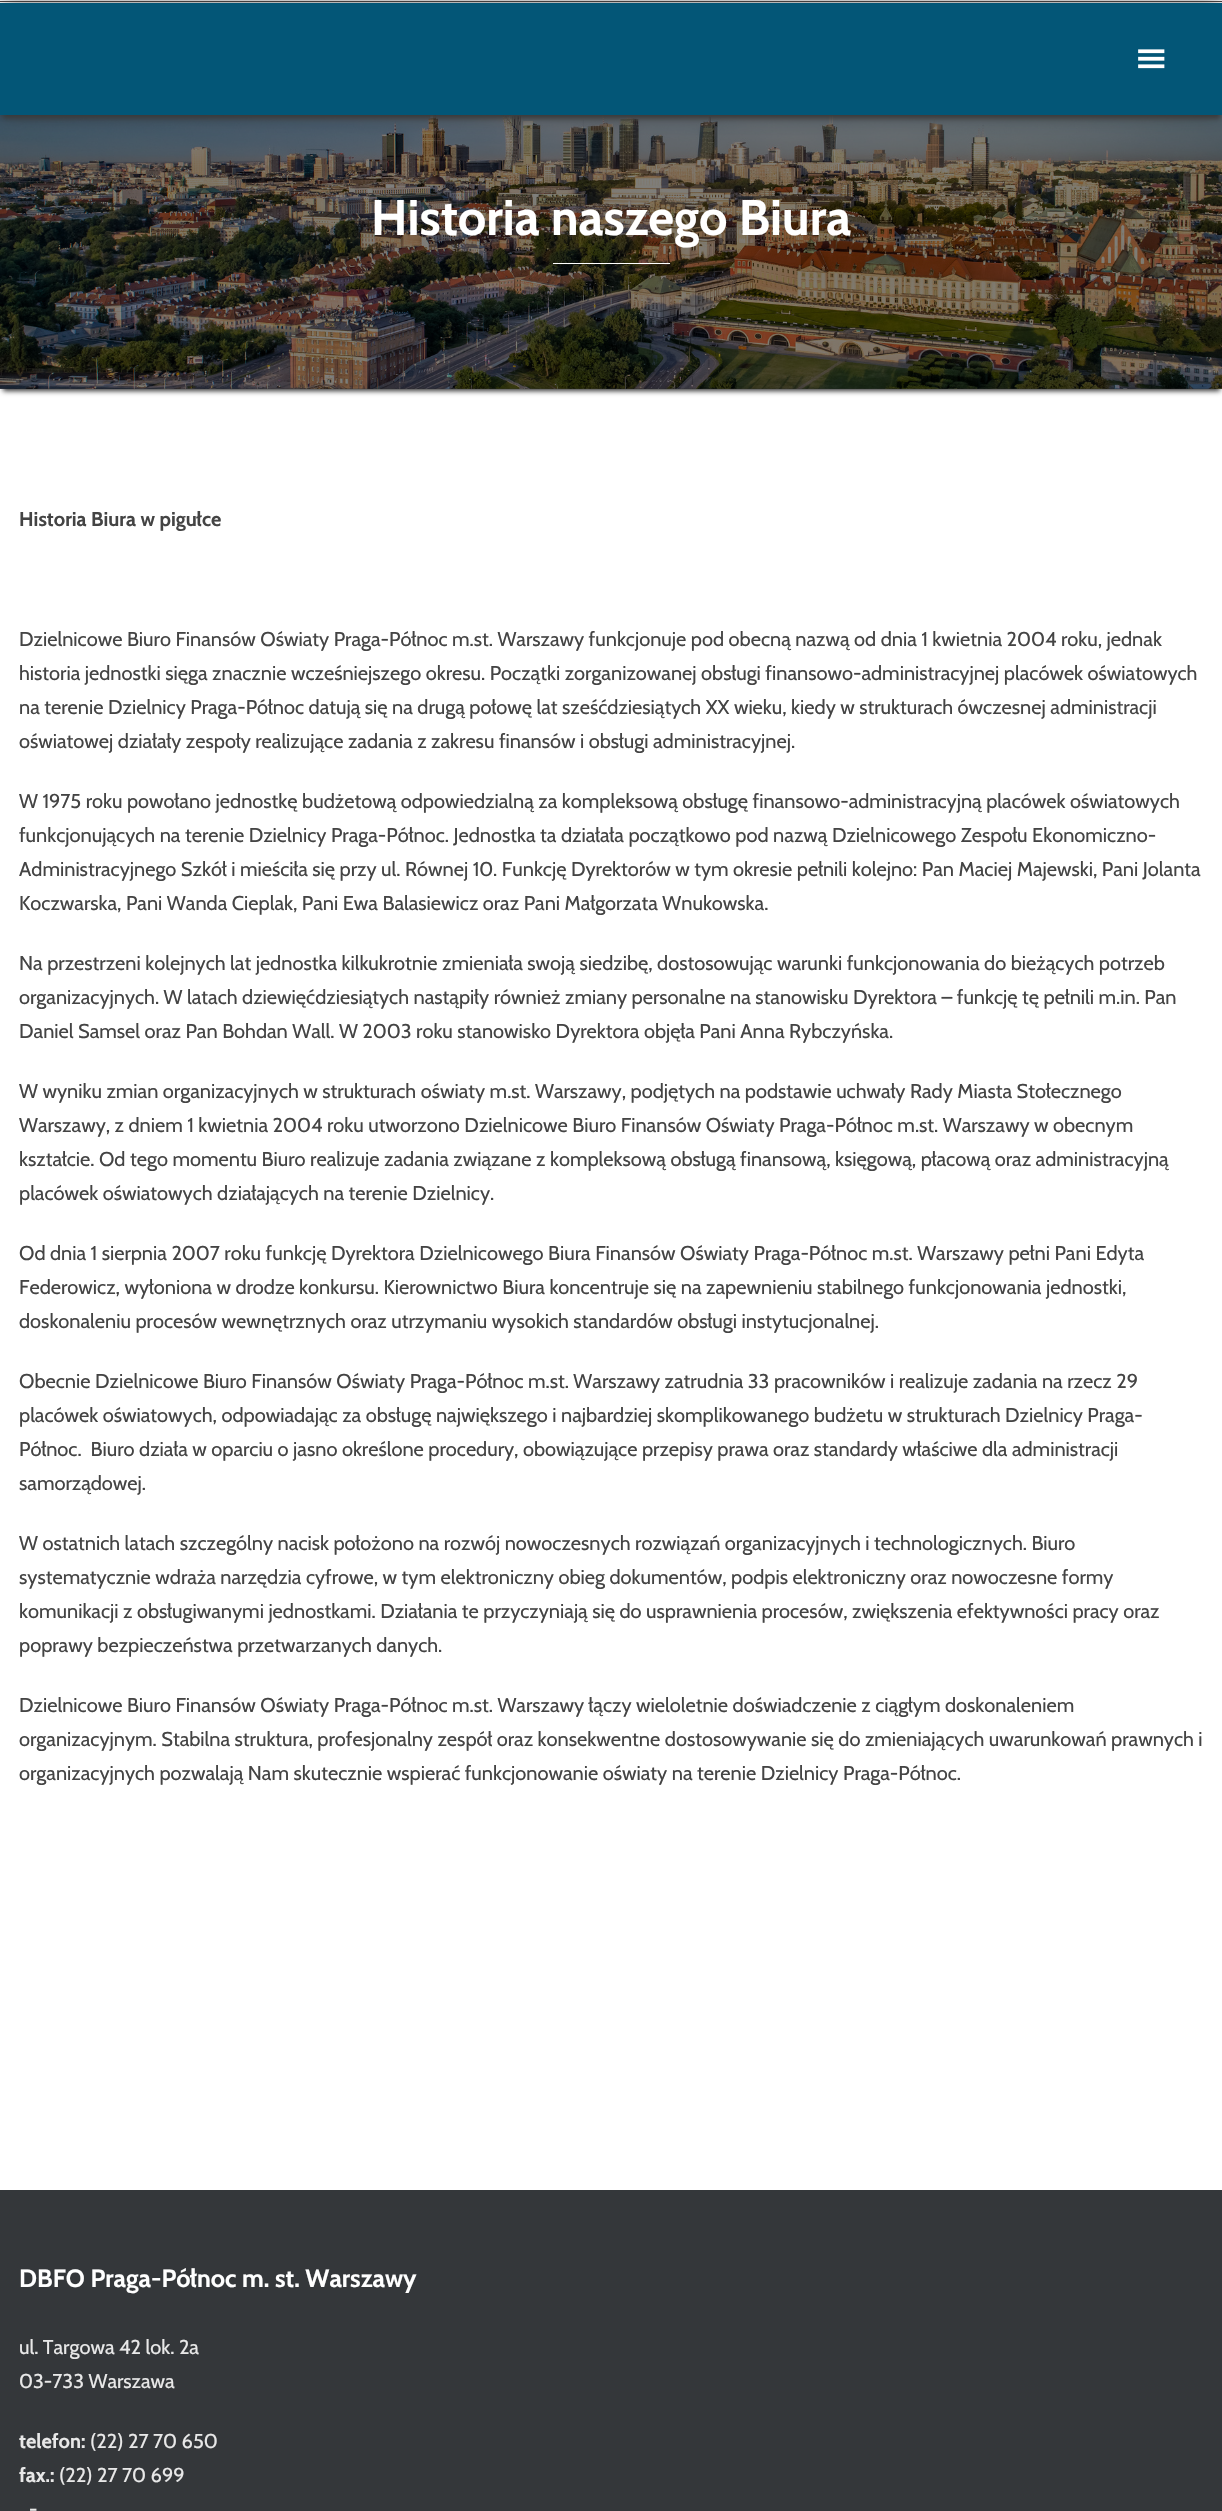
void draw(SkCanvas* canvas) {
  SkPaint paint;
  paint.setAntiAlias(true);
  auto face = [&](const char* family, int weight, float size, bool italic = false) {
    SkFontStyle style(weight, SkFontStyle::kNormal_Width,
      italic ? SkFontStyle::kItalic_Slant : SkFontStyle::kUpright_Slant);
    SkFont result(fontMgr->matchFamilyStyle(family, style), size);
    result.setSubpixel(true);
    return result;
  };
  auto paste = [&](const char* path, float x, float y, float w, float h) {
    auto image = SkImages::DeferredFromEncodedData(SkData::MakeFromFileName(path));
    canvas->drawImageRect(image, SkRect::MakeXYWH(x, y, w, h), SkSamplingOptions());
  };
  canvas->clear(0xffffffff);
  paint.setColor(0xff353535);
  paint.setMaskFilter(SkMaskFilter::MakeBlur(kNormal_SkBlurStyle, 2.5f));
  canvas->drawRect(SkRect::MakeXYWH(3, 123, 1217, 268), paint);
  paint.setMaskFilter(nullptr);
  paste("img/2.png", 0, 115, 1222, 274);
  paint.setColor(0x80000000);
  canvas->drawRect(SkRect::MakeXYWH(0, 115, 1222, 274), paint);
  paint.setColor(0xff353535);
  paint.setMaskFilter(SkMaskFilter::MakeBlur(kNormal_SkBlurStyle, 2.5f));
  canvas->drawRect(SkRect::MakeXYWH(3, 8, 1217, 110), paint);
  paint.setMaskFilter(nullptr);
  paint.setColor(0xff473e3c);
  canvas->drawRect(SkRect::MakeXYWH(0, 1, 1222, 1), paint);
  paint.setColor(0xff3e3e3e);
  paint.setMaskFilter(SkMaskFilter::MakeBlur(kNormal_SkBlurStyle, 9.5f));
  canvas->drawRect(SkRect::MakeXYWH(3, 6, 1217, 108), paint);
  paint.setMaskFilter(nullptr);
  paint.setColor(0xff035677);
  canvas->drawRect(SkRect::MakeXYWH(0, 3, 1222, 112), paint);
  paste("img/1.png", 1138, 49, 27, 20);
  paint.setColor(0xffffffff);
  canvas->drawRect(SkRect::MakeXYWH(553, 263, 117, 1), paint);
  paint.setColor(0xff34373a);
  canvas->drawRect(SkRect::MakeXYWH(0, 2190, 1222, 321), paint);
  auto f0 = face("Cabin", 700, 50);
  paint.setColor(0xffffffff);
  canvas->drawString("Historia naszego Biura", 371, 235, f0, paint);
  auto f1 = face("Cabin", 700, 20);
  paint.setColor(0xff444444);
  canvas->drawString("Historia Biura w pigułce", 19, 526, f1, paint);
  auto f2 = face("Cabin", 400, 20);
  {
    const struct { const char* s; float x, y; } items[] = {
      {"Dzielnicowe Biuro Finansów Oświaty Praga-Północ m.st. Warszawy funkcjonuje pod obecną nazwą od dnia 1 kwietnia 2004 roku, jednak", 19, 646},
      {"historia jednostki sięga znacznie wcześniejszego okresu. Początki zorganizowanej obsługi finansowo-administracyjnej placówek oświatowych", 19, 680},
      {"na terenie Dzielnicy Praga-Północ datują się na drugą połowę lat sześćdziesiątych XX wieku, kiedy w strukturach ówczesnej administracji", 19, 714},
      {"oświatowej działały zespoły realizujące zadania z zakresu finansów i obsługi administracyjnej.", 19, 748},
      {"W 1975 roku powołano jednostkę budżetową odpowiedzialną za kompleksową obsługę finansowo-administracyjną placówek oświatowych", 19, 808},
      {"funkcjonujących na terenie Dzielnicy Praga-Północ. Jednostka ta działała początkowo pod nazwą Dzielnicowego Zespołu Ekonomiczno-", 19, 842},
      {"Administracyjnego Szkół i mieściła się przy ul. Równej 10. Funkcję Dyrektorów w tym okresie pełnili kolejno: Pan Maciej Majewski, Pani Jolanta", 19, 876},
      {"Koczwarska, Pani Wanda Cieplak, Pani Ewa Balasiewicz oraz Pani Małgorzata Wnukowska.", 19, 910},
      {"Na przestrzeni kolejnych lat jednostka kilkukrotnie zmieniała swoją siedzibę, dostosowując warunki funkcjonowania do bieżących potrzeb", 19, 970},
      {"organizacyjnych. W latach dziewięćdziesiątych nastąpiły również zmiany personalne na stanowisku Dyrektora – funkcję tę pełnili m.in. Pan", 19, 1004},
      {"Daniel Samsel oraz Pan Bohdan Wall. W 2003 roku stanowisko Dyrektora objęła Pani Anna Rybczyńska.", 19, 1038},
      {"W wyniku zmian organizacyjnych w strukturach oświaty m.st. Warszawy, podjętych na podstawie uchwały Rady Miasta Stołecznego", 19, 1098},
      {"Warszawy, z dniem 1 kwietnia 2004 roku utworzono Dzielnicowe Biuro Finansów Oświaty Praga-Północ m.st. Warszawy w obecnym", 19, 1132},
      {"kształcie. Od tego momentu Biuro realizuje zadania związane z kompleksową obsługą finansową, księgową, płacową oraz administracyjną", 19, 1166},
      {"placówek oświatowych działających na terenie Dzielnicy.", 19, 1200},
      {"Od dnia 1 sierpnia 2007 roku funkcję Dyrektora Dzielnicowego Biura Finansów Oświaty Praga-Północ m.st. Warszawy pełni Pani Edyta", 19, 1260},
      {"Federowicz, wyłoniona w drodze konkursu. Kierownictwo Biura koncentruje się na zapewnieniu stabilnego funkcjonowania jednostki,", 19, 1294},
      {"doskonaleniu procesów wewnętrznych oraz utrzymaniu wysokich standardów obsługi instytucjonalnej.", 19, 1328},
      {"Obecnie Dzielnicowe Biuro Finansów Oświaty Praga-Północ m.st. Warszawy zatrudnia 33 pracowników i realizuje zadania na rzecz 29", 19, 1388},
      {"placówek oświatowych, odpowiadając za obsługę największego i najbardziej skomplikowanego budżetu w strukturach Dzielnicy Praga-", 19, 1422},
      {"Północ.  Biuro działa w oparciu o jasno określone procedury, obowiązujące przepisy prawa oraz standardy właściwe dla administracji", 19, 1456},
      {"samorządowej.", 19, 1490},
      {"W ostatnich latach szczególny nacisk położono na rozwój nowoczesnych rozwiązań organizacyjnych i technologicznych. Biuro", 19, 1550},
      {"systematycznie wdraża narzędzia cyfrowe, w tym elektroniczny obieg dokumentów, podpis elektroniczny oraz nowoczesne formy", 19, 1584},
      {"komunikacji z obsługiwanymi jednostkami. Działania te przyczyniają się do usprawnienia procesów, zwiększenia efektywności pracy oraz", 19, 1618},
      {"poprawy bezpieczeństwa przetwarzanych danych.", 19, 1652},
      {"Dzielnicowe Biuro Finansów Oświaty Praga-Północ m.st. Warszawy łączy wieloletnie doświadczenie z ciągłym doskonaleniem", 19, 1712},
      {"organizacyjnym. Stabilna struktura, profesjonalny zespół oraz konsekwentne dostosowywanie się do zmieniających uwarunkowań prawnych i", 19, 1746},
      {"organizacyjnych pozwalają Nam skutecznie wspierać funkcjonowanie oświaty na terenie Dzielnicy Praga-Północ.", 19, 1780},
    };
    for (auto [s, x, y] : items) {
      canvas->drawString(s, x, y, f2, paint);
    }
  }
  auto f3 = face("Cabin", 700, 25);
  paint.setColor(0xffffffff);
  canvas->drawString("DBFO Praga-Północ m. st. Warszawy", 19, 2287, f3, paint);
  paint.setColor(0xffe8e8e8);
  canvas->drawString("ul. Targowa 42 lok. 2a", 19, 2354, f2, paint);
  canvas->drawString("03-733 Warszawa", 19, 2388, f2, paint);
  canvas->drawString("telefon:", 19, 2448, f1, paint);
  canvas->drawString("(22) 27 70 650", 90, 2448, f2, paint);
  canvas->drawString("fax.:", 19, 2482, f1, paint);
  canvas->drawString("(22) 27 70 699", 59, 2482, f2, paint);
  canvas->drawString("-", 29, 2516, f1, paint);
}
